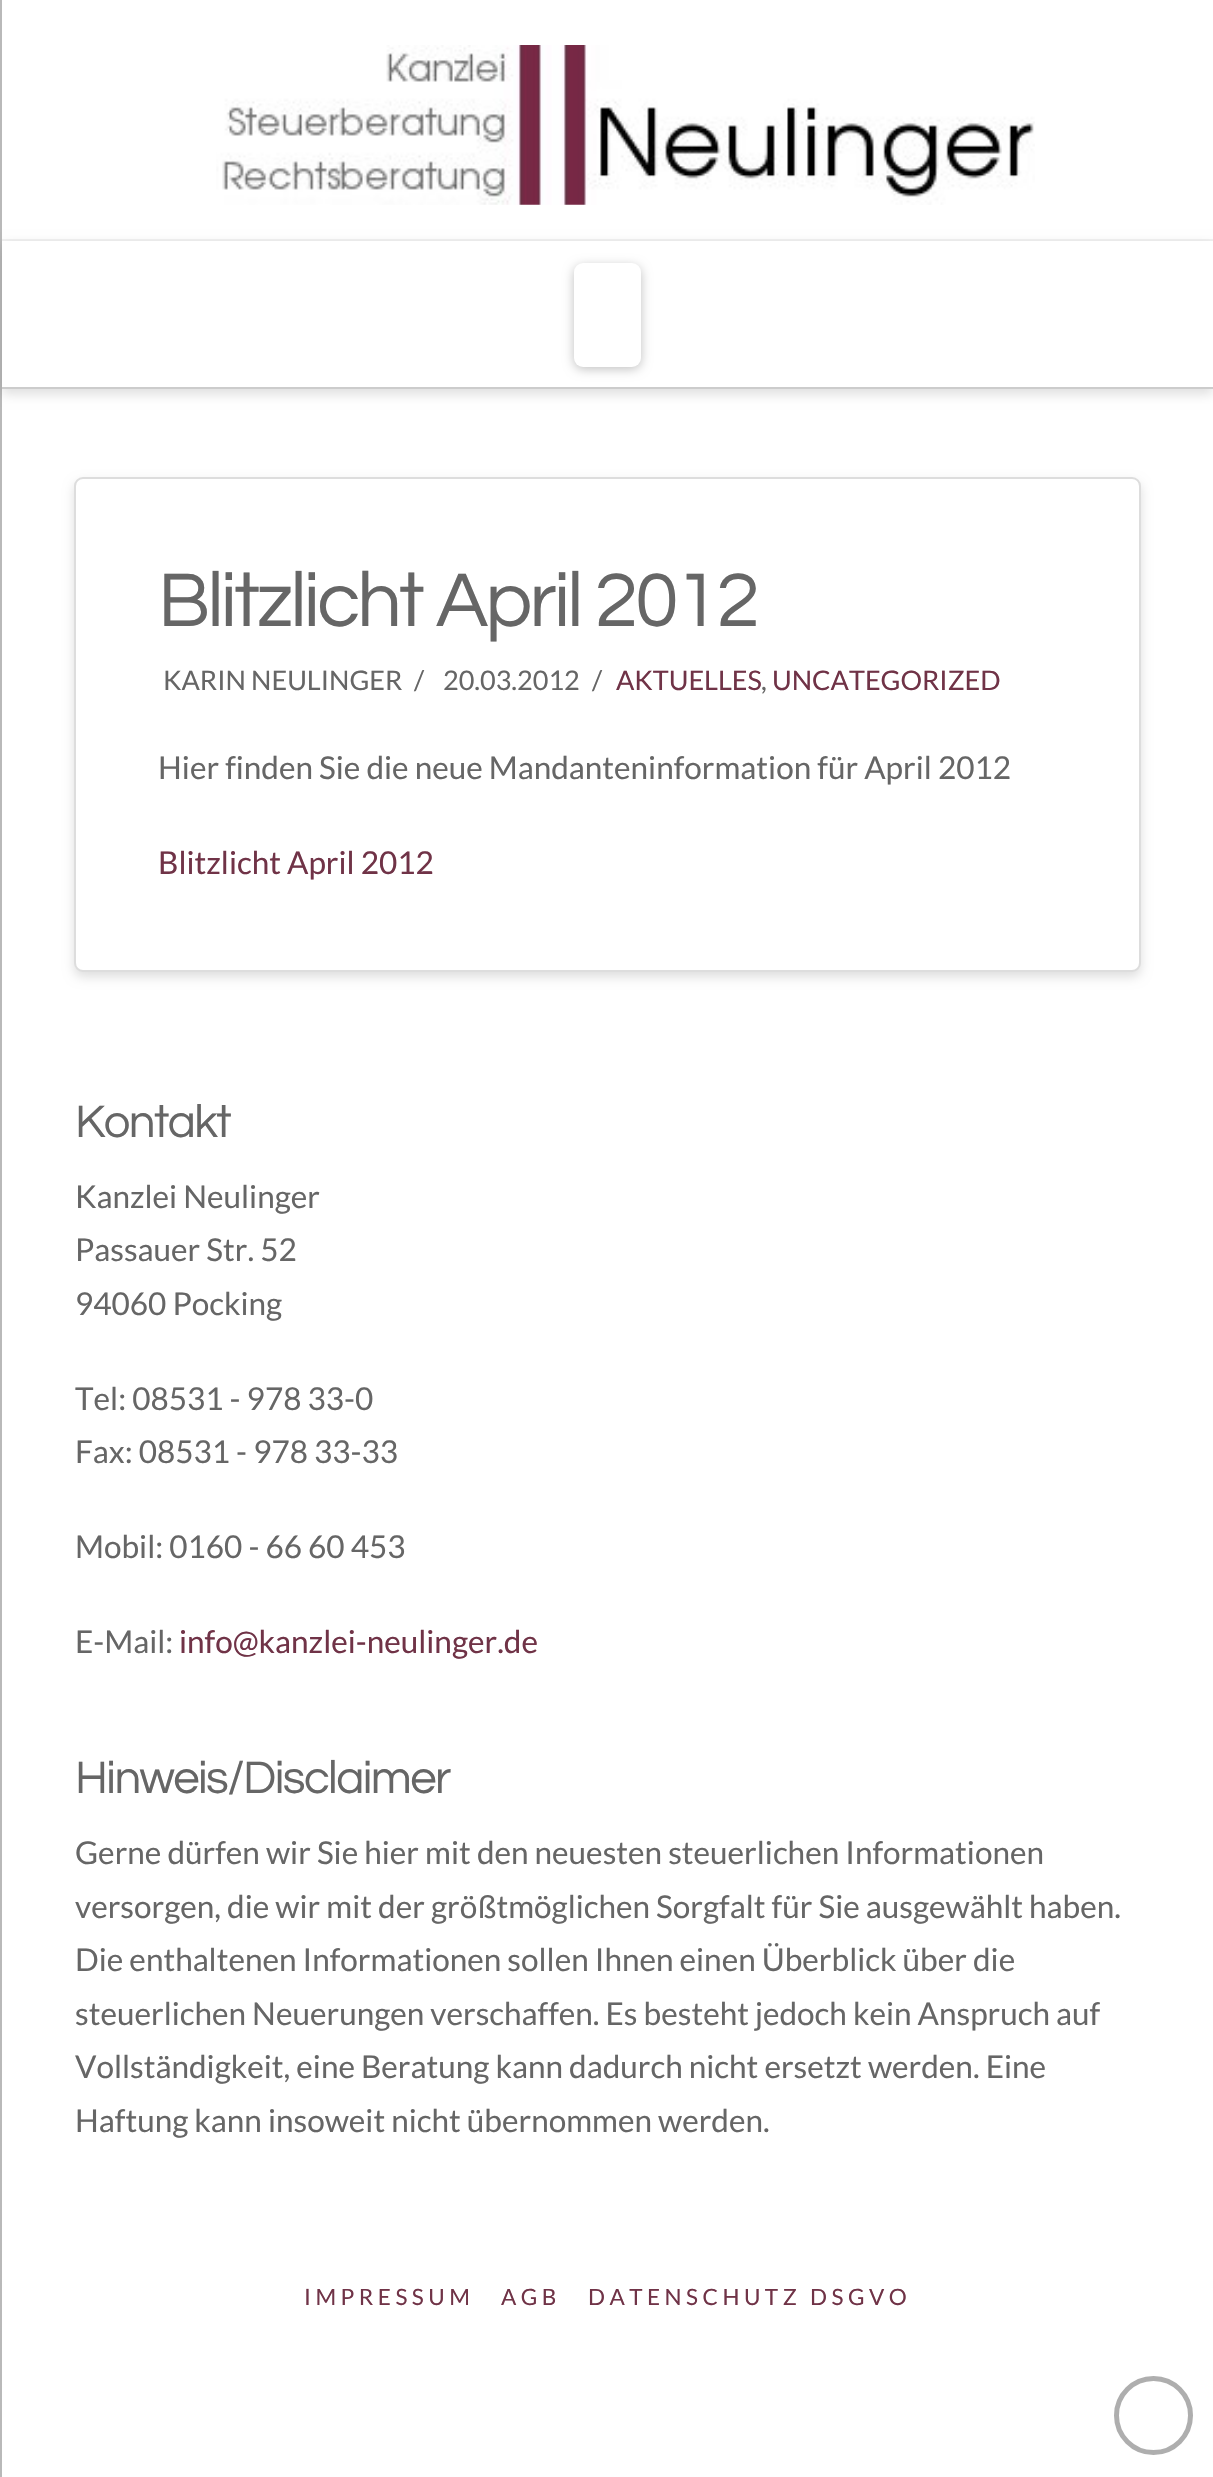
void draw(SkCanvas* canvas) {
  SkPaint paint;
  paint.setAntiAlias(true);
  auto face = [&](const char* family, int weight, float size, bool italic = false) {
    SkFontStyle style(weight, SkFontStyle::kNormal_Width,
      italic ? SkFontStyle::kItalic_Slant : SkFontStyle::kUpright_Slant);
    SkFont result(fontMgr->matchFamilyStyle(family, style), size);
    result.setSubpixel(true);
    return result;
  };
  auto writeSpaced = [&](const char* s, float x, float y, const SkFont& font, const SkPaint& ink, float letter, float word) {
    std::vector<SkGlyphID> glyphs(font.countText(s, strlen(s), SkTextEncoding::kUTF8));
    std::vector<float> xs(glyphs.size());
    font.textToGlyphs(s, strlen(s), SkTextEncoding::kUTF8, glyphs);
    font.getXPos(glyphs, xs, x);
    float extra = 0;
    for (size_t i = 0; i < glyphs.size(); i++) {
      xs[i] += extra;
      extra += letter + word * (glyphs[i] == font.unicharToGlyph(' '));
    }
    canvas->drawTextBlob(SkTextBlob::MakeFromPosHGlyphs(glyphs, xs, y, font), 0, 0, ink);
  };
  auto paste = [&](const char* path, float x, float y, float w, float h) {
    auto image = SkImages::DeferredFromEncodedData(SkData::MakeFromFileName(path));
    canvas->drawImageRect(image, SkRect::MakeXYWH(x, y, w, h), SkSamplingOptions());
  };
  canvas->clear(0xffffffff);
  paint.setColor(0xffb9b9b9);
  canvas->drawRect(SkRect::MakeXYWH(0, 0, 2, 2477), paint);
  paint.setColor(0xfff2f2f2);
  canvas->drawRect(SkRect::MakeXYWH(2, 239, 1211, 2), paint);
  paste("img/1.png", 216, 45, 819, 160);
  paint.setColor(0x21000000);
  paint.setMaskFilter(SkMaskFilter::MakeBlur(kNormal_SkBlurStyle, 5.5f));
  canvas->drawRect(SkRect::MakeXYWH(2, 245, 1211, 149), paint);
  paint.setMaskFilter(nullptr);
  paint.setColor(0xffffffff);
  canvas->drawRect(SkRect::MakeXYWH(2, 241, 1211, 146), paint);
  paint.setColor(0xffcccccc);
  canvas->drawRect(SkRect::MakeXYWH(2, 387, 1211, 2), paint);
  paint.setColor(0x40000000);
  paint.setMaskFilter(SkMaskFilter::MakeBlur(kNormal_SkBlurStyle, 5.5f));
  canvas->drawRoundRect(SkRect::MakeXYWH(574, 266, 67, 103), 9, 9, paint);
  paint.setMaskFilter(nullptr);
  paint.setColor(0xffffffff);
  canvas->drawRoundRect(SkRect::MakeXYWH(574, 263, 67, 104), 9, 9, paint);
  paint.setColor(0x21000000);
  paint.setMaskFilter(SkMaskFilter::MakeBlur(kNormal_SkBlurStyle, 5.5f));
  canvas->drawRoundRect(SkRect::MakeXYWH(74, 482, 1067, 495), 9, 9, paint);
  paint.setMaskFilter(nullptr);
  paint.setColor(0xffffffff);
  canvas->drawRoundRect(SkRect::MakeXYWH(75, 478, 1065, 493), 8, 8, paint);
  paint.setStroke(true);
  paint.setStrokeWidth(2);
  paint.setColor(0xffdddddd);
  canvas->drawRoundRect(SkRect::MakeXYWH(75, 478, 1065, 493), 8, 8, paint);
  paint.setStrokeWidth(5);
  paint.setColor(0xffaeaeae);
  canvas->drawCircle(1153.5f, 2415.5f, 37, paint);
  auto f0 = face("Questrial", 400, 78.75f);
  paint.setStroke(false);
  paint.setColor(0xff666666);
  writeSpaced("Blitzlicht April 2012", 158, 626, f0, paint, -2.75f, 0);
  auto f1 = face("Lato", 400, 27);
  {
    const struct { const char* s; float x, y; } items[] = {
      {"KARIN NEULINGER", 163, 690},
      {"/", 414, 690},
      {"20.03.2012", 443, 690},
      {"/", 592, 690},
    };
    for (auto [s, x, y] : items) {
      canvas->drawString(s, x, y, f1, paint);
    }
  }
  paint.setColor(0xff703347);
  canvas->drawString("AKTUELLES", 616, 690, f1, paint);
  paint.setColor(0xff666666);
  canvas->drawString(",", 761, 690, f1, paint);
  paint.setColor(0xff703347);
  canvas->drawString("UNCATEGORIZED", 772, 690, f1, paint);
  auto f2 = face("Lato", 400, 31.5f);
  paint.setColor(0xff666666);
  canvas->drawString("Hier finden Sie die neue Mandanteninformation für April 2012", 158, 779, f2, paint);
  paint.setColor(0xff703347);
  canvas->drawString("Blitzlicht April 2012", 158, 874, f2, paint);
  auto f3 = face("Questrial", 400, 47.25f);
  paint.setColor(0xff666666);
  writeSpaced("Kontakt", 75, 1137, f3, paint, -1.6f, 0);
  {
    const struct { const char* s; float x, y; } items[] = {
      {"Kanzlei Neulinger", 75, 1208},
      {"Passauer Str. 52", 75, 1261},
      {"94060 Pocking", 75, 1315},
      {"Tel: 08531 - 978 33-0", 75, 1410},
      {"Fax: 08531 - 978 33-33", 75, 1463},
      {"Mobil: 0160 - 66 60 453", 75, 1558},
      {"E-Mail:", 75, 1653},
    };
    for (auto [s, x, y] : items) {
      canvas->drawString(s, x, y, f2, paint);
    }
  }
  paint.setColor(0xff703347);
  canvas->drawString("info@kanzlei-neulinger.de", 179, 1653, f2, paint);
  paint.setColor(0xff666666);
  writeSpaced("Hinweis/Disclaimer", 75, 1793, f3, paint, -1.6f, 0);
  {
    const struct { const char* s; float x, y; } items[] = {
      {"Gerne dürfen wir Sie hier mit den neuesten steuerlichen Informationen", 75, 1864},
      {"versorgen, die wir mit der größtmöglichen Sorgfalt für Sie ausgewählt haben.", 75, 1918},
      {"Die enthaltenen Informationen sollen Ihnen einen Überblick über die", 75, 1971},
      {"steuerlichen Neuerungen verschaffen. Es besteht jedoch kein Anspruch auf", 75, 2025},
      {"Vollständigkeit, eine Beratung kann dadurch nicht ersetzt werden. Eine", 75, 2078},
      {"Haftung kann insoweit nicht übernommen werden.", 75, 2132},
    };
    for (auto [s, x, y] : items) {
      canvas->drawString(s, x, y, f2, paint);
    }
  }
  auto f4 = face("Lato", 400, 22.5f);
  paint.setColor(0xff703347);
  {
    const struct { const char* s; float x, y; } items[] = {
      {"IMPRESSUM", 304, 2305},
      {"AGB", 501, 2305},
      {"DATENSCHUTZ DSGVO", 588, 2305},
    };
    for (auto [s, x, y] : items) {
      writeSpaced(s, x, y, f4, paint, 4.5f, 0);
    }
  }
}
